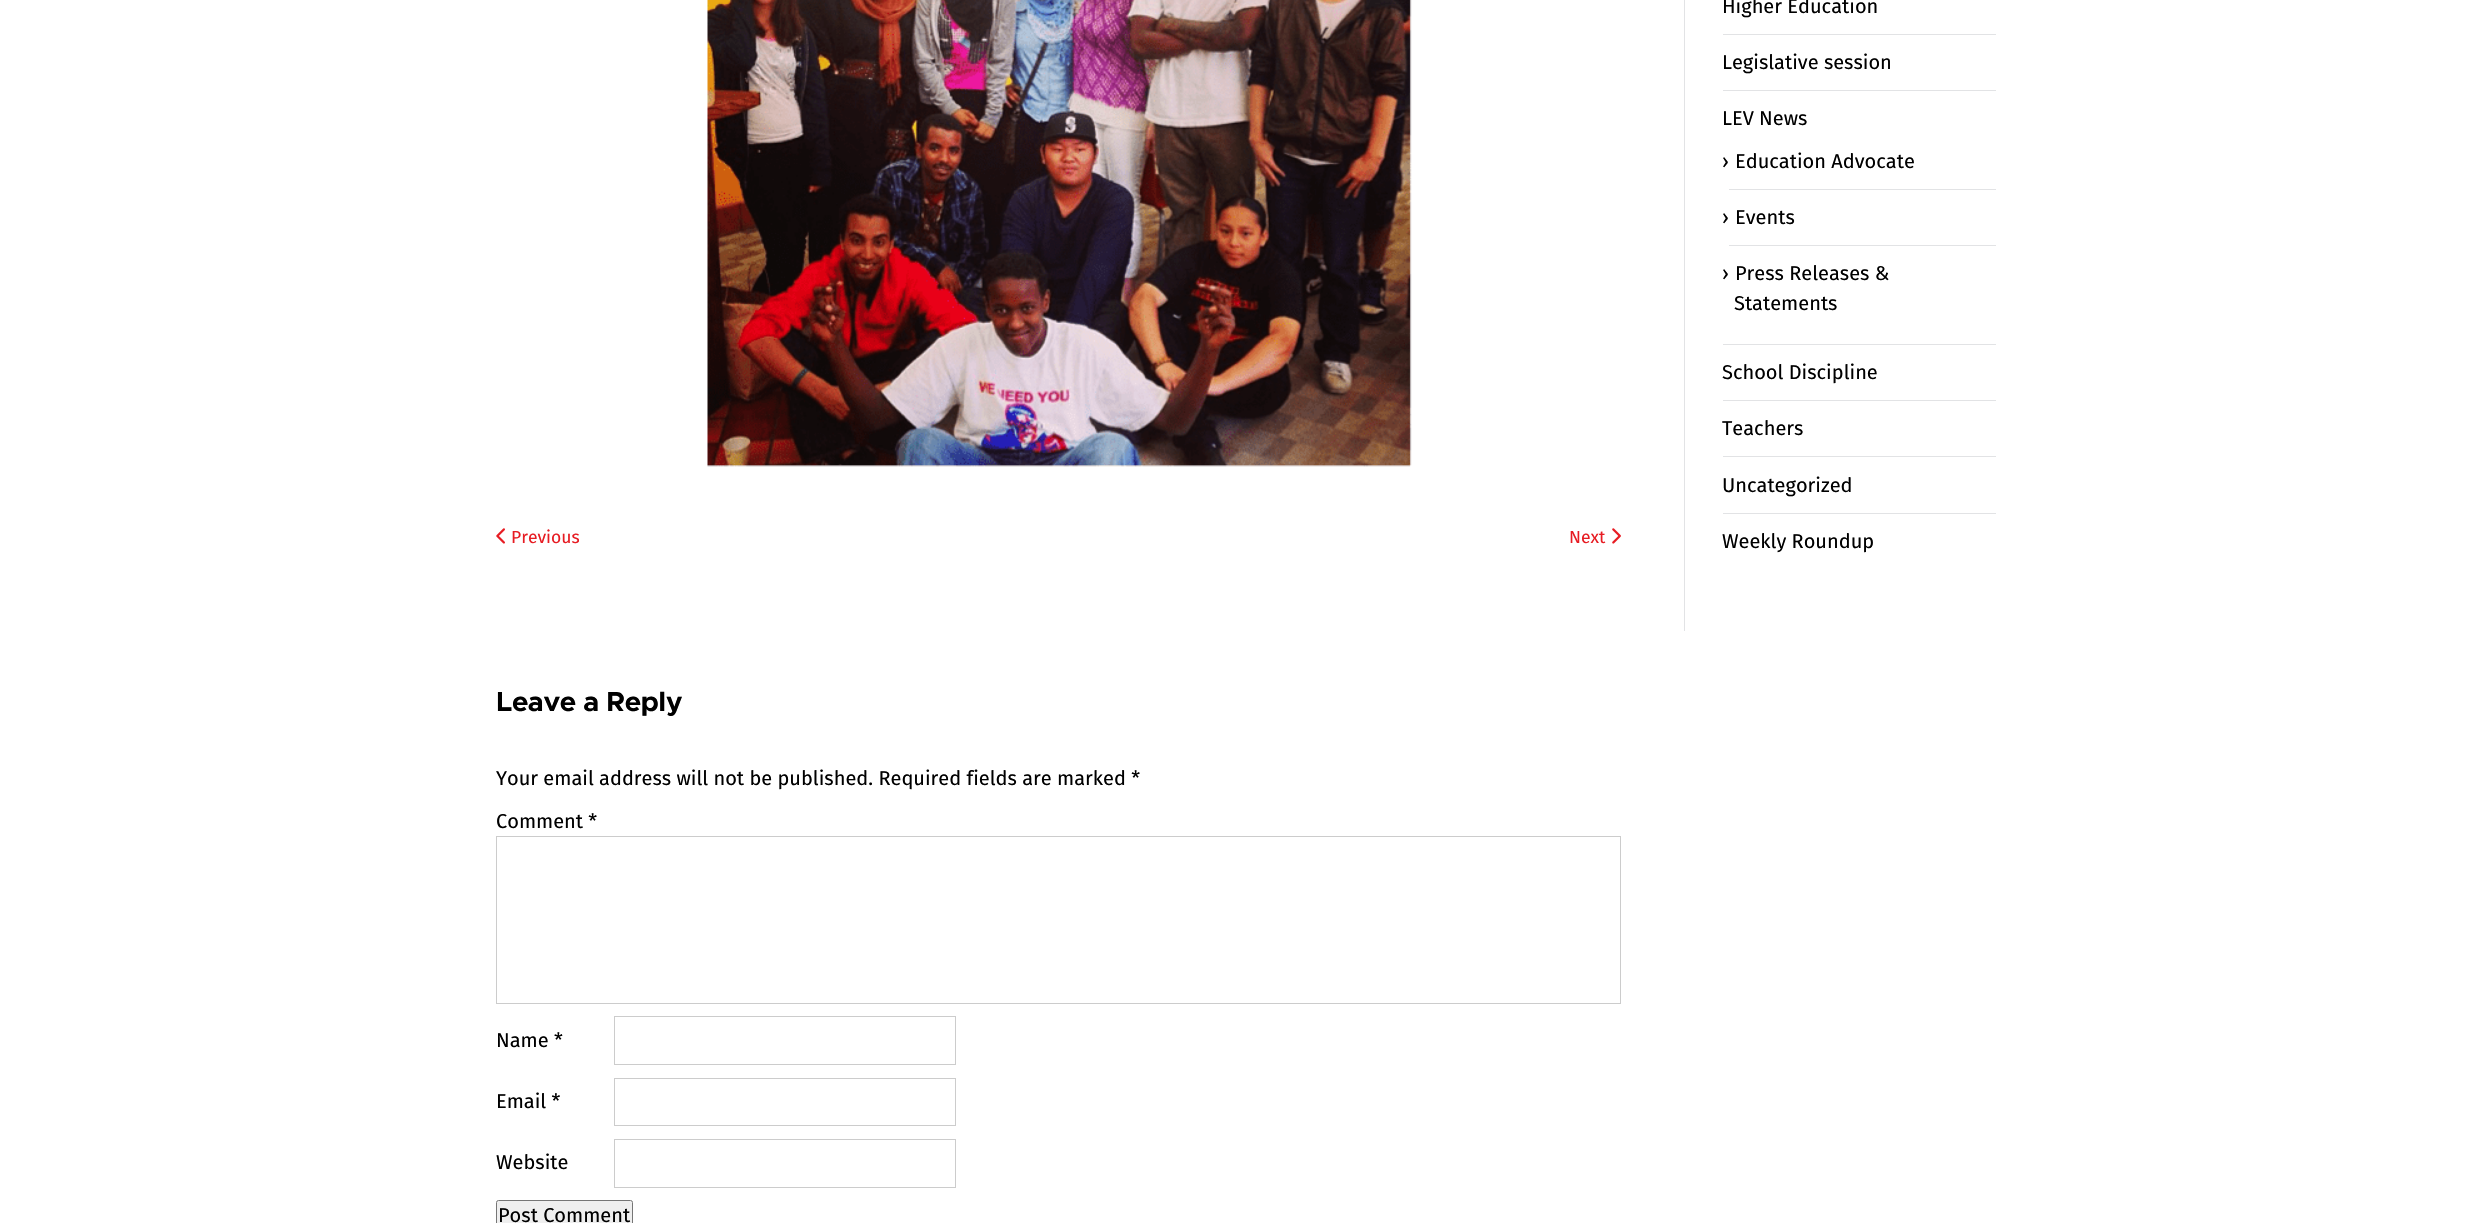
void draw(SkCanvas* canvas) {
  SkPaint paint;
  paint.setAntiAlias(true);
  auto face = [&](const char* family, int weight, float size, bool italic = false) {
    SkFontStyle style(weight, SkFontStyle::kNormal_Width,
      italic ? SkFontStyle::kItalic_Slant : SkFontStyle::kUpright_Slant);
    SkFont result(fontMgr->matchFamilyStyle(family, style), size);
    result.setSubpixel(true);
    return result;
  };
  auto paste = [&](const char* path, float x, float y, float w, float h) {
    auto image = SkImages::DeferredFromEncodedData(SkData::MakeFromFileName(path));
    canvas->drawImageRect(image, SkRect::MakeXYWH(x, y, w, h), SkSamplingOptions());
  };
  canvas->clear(0xffffffff);
  {
    const struct { float x, y, w, h; SkColor color; } items[] = {
      {1684, 0, 1, 631, 0xffe2e3e5},
      {1723, 34, 273, 1, 0xffe2e3e5},
      {1723, 90, 273, 1, 0xffe2e3e5},
      {1729, 189, 267, 1, 0xffe2e3e5},
      {1729, 245, 267, 1, 0xffe2e3e5},
      {1723, 344, 273, 1, 0xffe2e3e5},
      {1723, 400, 273, 1, 0xffe2e3e5},
      {1723, 456, 273, 1, 0xffe2e3e5},
      {1723, 513, 273, 1, 0xffe2e3e5},
    };
    for (auto [x, y, w, h, color] : items) {
      paint.setColor(color);
      canvas->drawRect(SkRect::MakeXYWH(x, y, w, h), paint);
    }
  }
  paste("img/1.png", 707, 0, 705, 467);
  paste("img/2.png", 496, 528, 9, 16);
  paste("img/3.png", 1612, 528, 9, 16);
  paint.setStroke(true);
  paint.setStrokeWidth(1);
  paint.setColor(0xffcccccc);
  canvas->drawRect(SkRect::MakeXYWH(496.5f, 836.5f, 1124, 167), paint);
  canvas->drawRect(SkRect::MakeXYWH(614.5f, 1016.5f, 341, 48), paint);
  canvas->drawRect(SkRect::MakeXYWH(614.5f, 1078.5f, 341, 47), paint);
  canvas->drawRect(SkRect::MakeXYWH(614.5f, 1139.5f, 341, 48), paint);
  paint.setStroke(false);
  paint.setColor(0xffefefef);
  canvas->drawRoundRect(SkRect::MakeXYWH(496.5f, 1200.5f, 136, 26), 2, 2, paint);
  paint.setStroke(true);
  paint.setColor(0xff767676);
  canvas->drawRoundRect(SkRect::MakeXYWH(496.5f, 1200.5f, 136, 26), 2, 2, paint);
  auto f0 = face("Fira Sans", 400, 20);
  paint.setStroke(false);
  paint.setColor(0xff000000);
  {
    const struct { const char* s; float x, y; } items[] = {
      {"Higher Education", 1722, 13},
      {"Legislative session", 1722, 69},
      {"LEV News", 1722, 125},
      {"›", 1722, 168},
      {"Education Advocate", 1735, 168},
      {"›", 1722, 224},
      {"Events", 1735, 224},
      {"›", 1722, 280},
      {"Press Releases &", 1735, 280},
      {"Statements", 1734, 310},
      {"School Discipline", 1722, 379},
      {"Teachers", 1722, 435},
      {"Uncategorized", 1722, 492},
      {"Weekly Roundup", 1722, 548},
    };
    for (auto [s, x, y] : items) {
      canvas->drawString(s, x, y, f0, paint);
    }
  }
  auto f1 = face("Fira Sans", 400, 17.5f);
  paint.setColor(0xffe71c23);
  canvas->drawString("Previous", 511, 543, f1, paint);
  canvas->drawString("Next", 1569, 543, f1, paint);
  auto f2 = face("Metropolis", 700, 27.5f);
  paint.setColor(0xff000000);
  canvas->drawString("Leave a Reply", 496, 711, f2, paint);
  {
    const struct { const char* s; float x, y; } items[] = {
      {"Your email address will not be published. Required fields are marked *", 496, 785},
      {"Comment *", 496, 828},
      {"Name *", 496, 1047},
      {"Email *", 496, 1108},
      {"Website", 496, 1169},
      {"Post Comment", 498, 1222},
    };
    for (auto [s, x, y] : items) {
      canvas->drawString(s, x, y, f0, paint);
    }
  }
}
